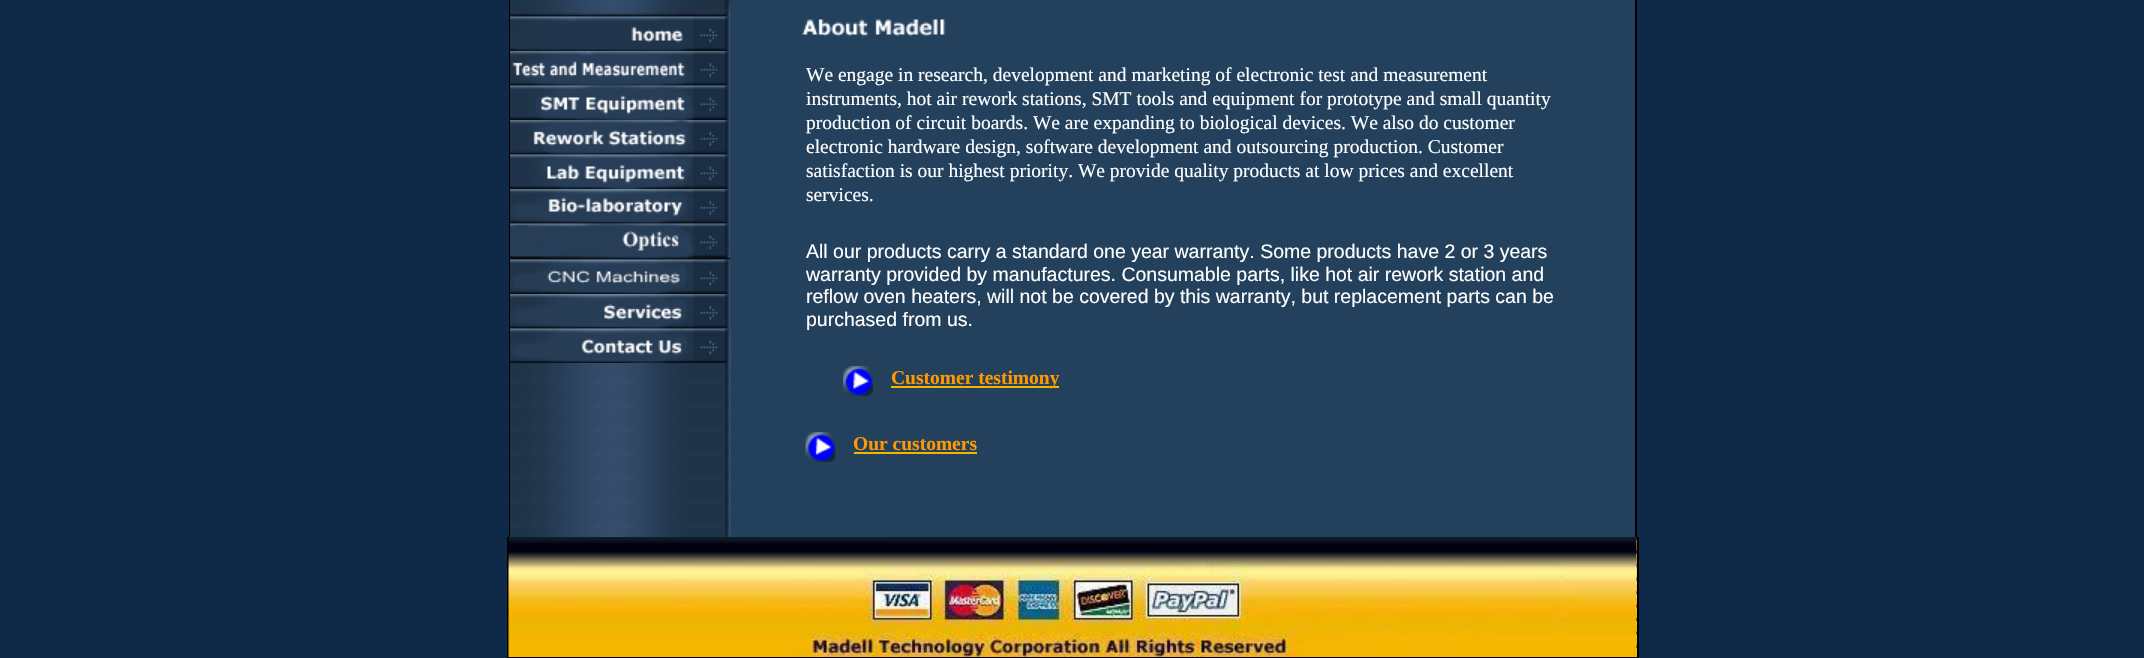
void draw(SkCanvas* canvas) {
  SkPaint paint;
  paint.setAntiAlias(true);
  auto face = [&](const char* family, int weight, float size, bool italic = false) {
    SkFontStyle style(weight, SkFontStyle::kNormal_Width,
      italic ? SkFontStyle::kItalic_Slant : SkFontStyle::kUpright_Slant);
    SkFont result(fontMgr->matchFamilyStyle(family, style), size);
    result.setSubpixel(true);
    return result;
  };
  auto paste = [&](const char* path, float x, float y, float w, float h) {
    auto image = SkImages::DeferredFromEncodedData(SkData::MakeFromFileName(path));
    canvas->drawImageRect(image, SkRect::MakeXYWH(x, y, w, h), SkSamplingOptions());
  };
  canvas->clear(0xff0f2a48);
  {
    const struct { float x, y, w, h; SkColor color; } items[] = {
      {730, 0, 905, 537, 0xff23415d},
      {1635, 0, 2, 537, 0xff000000},
      {509, 0, 1, 537, 0xff000000},
    };
    for (auto [x, y, w, h, color] : items) {
      paint.setColor(color);
      canvas->drawRect(SkRect::MakeXYWH(x, y, w, h), paint);
    }
  }
  paste("img/1.png", 510, 329, 221, 208);
  paint.setColor(0xff1a3450);
  canvas->drawRect(SkRect::MakeXYWH(510, 0, 221, 329), paint);
  paste("img/2.png", 510, 0, 221, 17);
  paste("img/3.png", 510, 16, 221, 35);
  paste("img/4.png", 510, 51, 221, 35);
  paste("img/5.png", 510, 85, 221, 35);
  paste("img/6.png", 510, 120, 221, 35);
  paste("img/7.png", 510, 154, 221, 35);
  paste("img/8.png", 510, 189, 221, 35);
  paste("img/9.png", 510, 223, 221, 37);
  paste("img/10.png", 510, 259, 221, 35);
  paste("img/11.png", 510, 294, 221, 35);
  paste("img/12.png", 510, 328, 221, 35);
  paste("img/13.png", 802, 19, 144, 18);
  paste("img/14.png", 843, 366, 30, 30);
  paint.setColor(0xfff4b500);
  canvas->drawRect(SkRect::MakeXYWH(891, 386, 168, 2), paint);
  paste("img/15.png", 805, 432, 31, 30);
  canvas->drawRect(SkRect::MakeXYWH(854, 452, 123, 2), paint);
  paste("img/16.png", 1636, 537, 1, 120);
  {
    const struct { float x, y, w, h; SkColor color; } items[] = {
      {1637, 537, 2, 121, 0xff000000},
      {507, 657, 1131, 1, 0xff000000},
      {507, 537, 2, 121, 0xff000000},
    };
    for (auto [x, y, w, h, color] : items) {
      paint.setColor(color);
      canvas->drawRect(SkRect::MakeXYWH(x, y, w, h), paint);
    }
  }
  paste("img/17.png", 508, 537, 1129, 120);
  auto f0 = face("Liberation Serif", 400, 19.5f);
  paint.setColor(0xffffffff);
  {
    const struct { const char* s; float x, y; } items[] = {
      {"We engage in research, development and marketing of electronic test and measurement", 806, 81},
      {"instruments, hot air rework stations, SMT tools and equipment for prototype and small quantity", 806, 105},
      {"production of circuit boards. We are expanding to biological devices. We also do customer", 806, 129},
      {"electronic hardware design, software development and outsourcing production. Customer", 806, 153},
      {"satisfaction is our highest priority. We provide quality products at low prices and excellent", 806, 177},
      {"services.", 806, 201},
    };
    for (auto [s, x, y] : items) {
      canvas->drawString(s, x, y, f0, paint);
    }
  }
  auto f1 = face("Liberation Sans", 400, 19.5f);
  {
    const struct { const char* s; float x, y; } items[] = {
      {"All our products carry a standard one year warranty. Some products have 2 or 3 years", 806, 258},
      {"warranty provided by manufactures. Consumable parts, like hot air rework station and", 806, 281},
      {"reflow oven heaters, will not be covered by this warranty, but replacement parts can be", 806, 303},
      {"purchased from us.", 806, 326},
    };
    for (auto [s, x, y] : items) {
      canvas->drawString(s, x, y, f1, paint);
    }
  }
  auto f2 = face("Liberation Serif", 700, 19.5f);
  paint.setColor(0xffff9900);
  canvas->drawString("Customer testimony", 891, 384, f2, paint);
  canvas->drawString("Our customers", 853, 450, f2, paint);
}
